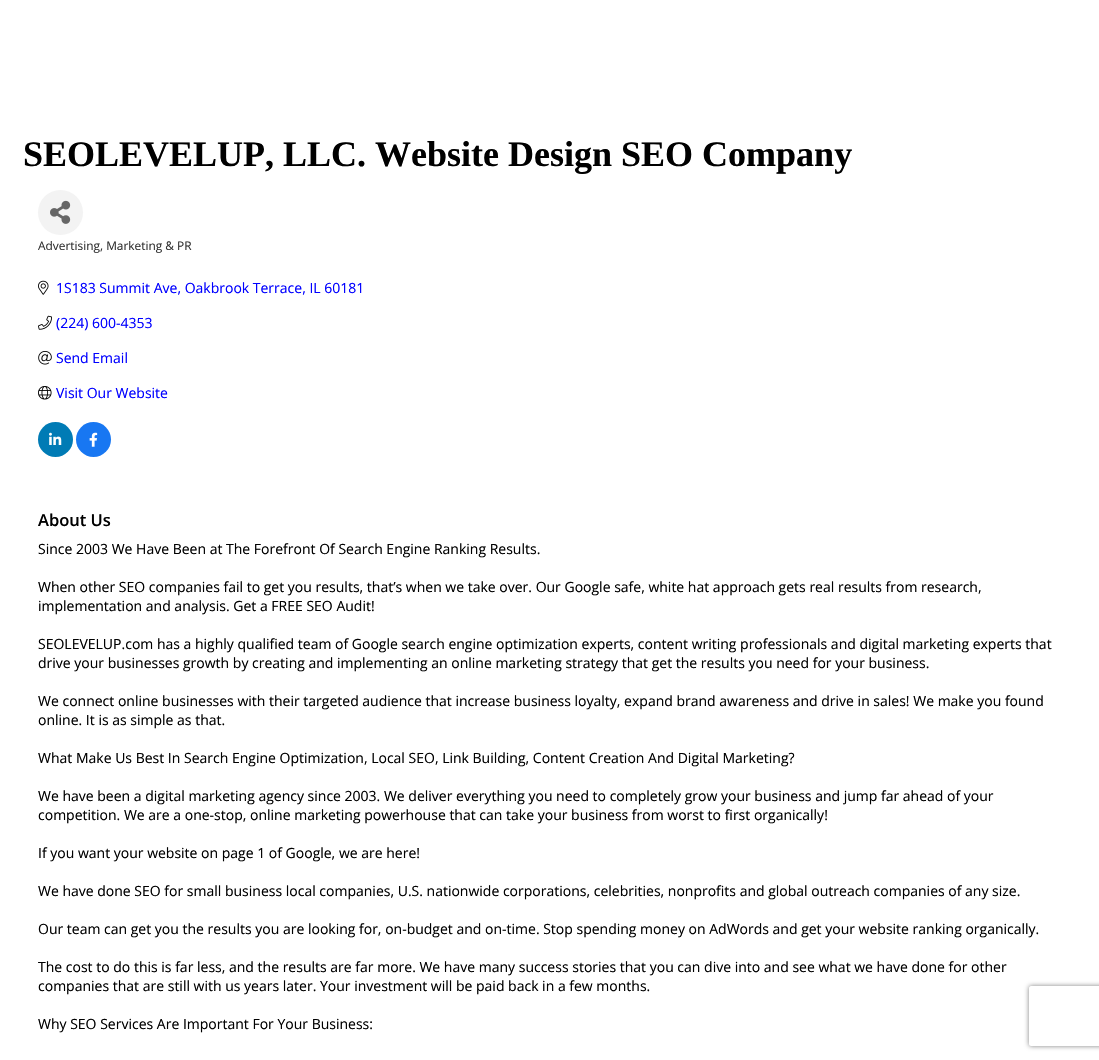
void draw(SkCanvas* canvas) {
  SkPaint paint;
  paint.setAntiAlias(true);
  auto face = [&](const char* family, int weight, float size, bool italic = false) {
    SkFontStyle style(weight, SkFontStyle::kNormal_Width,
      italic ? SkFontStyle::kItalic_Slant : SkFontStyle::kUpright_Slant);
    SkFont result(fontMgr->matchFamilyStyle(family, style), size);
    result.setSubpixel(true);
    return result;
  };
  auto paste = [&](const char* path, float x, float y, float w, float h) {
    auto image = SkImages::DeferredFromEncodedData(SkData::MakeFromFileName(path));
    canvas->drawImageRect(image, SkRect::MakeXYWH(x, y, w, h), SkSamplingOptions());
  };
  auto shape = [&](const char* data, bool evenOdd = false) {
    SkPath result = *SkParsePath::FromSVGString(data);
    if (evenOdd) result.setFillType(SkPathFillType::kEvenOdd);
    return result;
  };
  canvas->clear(0xffffffff);
  paint.setColor(0xfff3f3f3);
  canvas->drawCircle(60.5f, 212.5f, 22.5f, paint);
  paste("img/1.png", 50, 200, 21, 24);
  paste("img/2.png", 38, 280, 11, 15);
  paste("img/3.png", 38, 315, 14, 15);
  paste("img/4.png", 38, 351, 14, 14);
  paste("img/5.png", 38, 386, 14, 14);
  paint.setColor(0xff007bb5);
  canvas->drawCircle(55.5f, 439.5f, 17.5f, paint);
  paste("img/6.png", 49, 432, 13, 13);
  paint.setColor(0xff1877f2);
  canvas->drawCircle(93.5f, 439.5f, 17.5f, paint);
  paste("img/7.png", 89, 432, 9, 15);
  canvas->save();
  canvas->clipPath(shape("M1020 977H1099V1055H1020ZM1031 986H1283C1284 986 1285 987 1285 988V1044C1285 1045 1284 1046 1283 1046H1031C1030 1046 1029 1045 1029 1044V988C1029 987 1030 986 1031 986Z", true), true);
  paint.setColor(0xff808080);
  paint.setMaskFilter(SkMaskFilter::MakeBlur(kNormal_SkBlurStyle, 2.5f));
  canvas->drawRoundRect(SkRect::MakeXYWH(1029, 986, 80, 60), 2, 2, paint);
  paint.setMaskFilter(nullptr);
  canvas->restore();
  auto f0 = face("Liberation Serif", 700, 36);
  paint.setColor(0xff000000);
  canvas->drawString("SEOLEVELUP, LLC. Website Design SEO Company", 23, 166, f0, paint);
  auto f1 = face("Open Sans", 400, 11.9f);
  paint.setColor(0xff333333);
  canvas->drawString("Advertising, Marketing & PR", 38, 250, f1, paint);
  auto f2 = face("Open Sans", 400, 14);
  paint.setColor(0xff0000ff);
  {
    const struct { const char* s; float x, y; } items[] = {
      {"1S183 Summit Ave, Oakbrook Terrace, IL 60181", 56, 293},
      {"(224) 600-4353", 56, 328},
      {"Send Email", 56, 363},
      {"Visit Our Website", 56, 398},
    };
    for (auto [s, x, y] : items) {
      canvas->drawString(s, x, y, f2, paint);
    }
  }
  auto f3 = face("Open Sans", 600, 16.5f);
  paint.setColor(0xff000000);
  canvas->drawString("About Us", 38, 526, f3, paint);
  {
    const struct { const char* s; float x, y; } items[] = {
      {"Since 2003 We Have Been at The Forefront Of Search Engine Ranking Results.", 38, 554},
      {"When other SEO companies fail to get you results, that’s when we take over. Our Google safe, white hat approach gets real results from research,", 38, 592},
      {"implementation and analysis. Get a FREE SEO Audit!", 38, 611},
      {"SEOLEVELUP.com has a highly qualified team of Google search engine optimization experts, content writing professionals and digital marketing experts that", 38, 649},
      {"drive your businesses growth by creating and implementing an online marketing strategy that get the results you need for your business.", 38, 668},
      {"We connect online businesses with their targeted audience that increase business loyalty, expand brand awareness and drive in sales! We make you found", 38, 706},
      {"online. It is as simple as that.", 38, 725},
      {"What Make Us Best In Search Engine Optimization, Local SEO, Link Building, Content Creation And Digital Marketing?", 38, 763},
      {"We have been a digital marketing agency since 2003. We deliver everything you need to completely grow your business and jump far ahead of your", 38, 801},
      {"competition. We are a one-stop, online marketing powerhouse that can take your business from worst to first organically!", 38, 820},
      {"If you want your website on page 1 of Google, we are here!", 38, 858},
      {"We have done SEO for small business local companies, U.S. nationwide corporations, celebrities, nonprofits and global outreach companies of any size.", 38, 896},
      {"Our team can get you the results you are looking for, on-budget and on-time. Stop spending money on AdWords and get your website ranking organically.", 38, 934},
      {"The cost to do this is far less, and the results are far more. We have many success stories that you can dive into and see what we have done for other", 38, 972},
      {"companies that are still with us years later. Your investment will be paid back in a few months.", 38, 991},
      {"Why SEO Services Are Important For Your Business:", 38, 1029},
    };
    for (auto [s, x, y] : items) {
      canvas->drawString(s, x, y, f2, paint);
    }
  }
}
